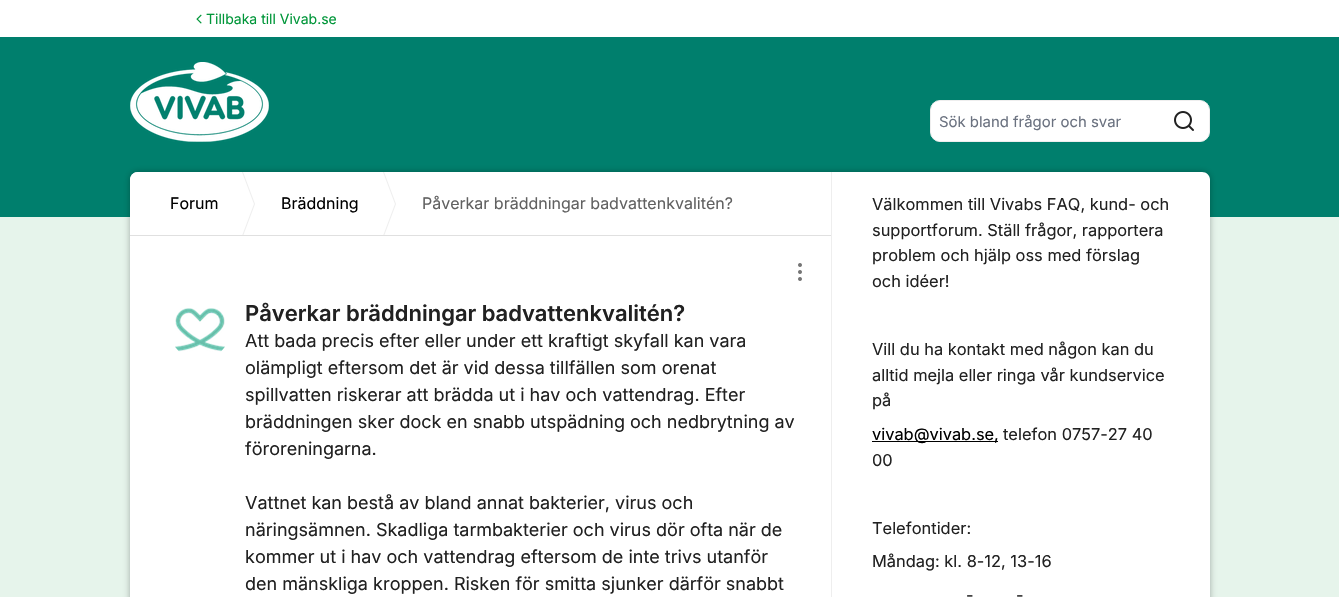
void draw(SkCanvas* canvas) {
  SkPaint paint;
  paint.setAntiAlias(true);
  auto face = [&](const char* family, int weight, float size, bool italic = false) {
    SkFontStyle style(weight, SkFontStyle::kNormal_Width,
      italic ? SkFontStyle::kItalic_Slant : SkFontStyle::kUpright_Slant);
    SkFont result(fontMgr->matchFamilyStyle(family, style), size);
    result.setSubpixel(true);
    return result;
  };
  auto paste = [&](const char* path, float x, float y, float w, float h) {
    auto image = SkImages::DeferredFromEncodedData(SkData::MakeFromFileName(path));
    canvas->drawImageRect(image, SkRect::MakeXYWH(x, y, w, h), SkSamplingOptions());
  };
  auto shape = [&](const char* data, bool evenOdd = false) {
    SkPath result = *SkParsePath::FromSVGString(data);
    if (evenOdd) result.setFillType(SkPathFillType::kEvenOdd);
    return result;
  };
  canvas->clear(0xff007f6d);
  paint.setColor(0xffffffff);
  canvas->drawRect(SkRect::MakeXYWH(0, 0, 1339, 37), paint);
  paste("img/1.png", 196, 14, 6, 10);
  paste("img/2.png", 130, 62, 139, 80);
  canvas->drawRoundRect(SkRect::MakeXYWH(930.5f, 100.5f, 279, 41), 9.5f, 9.5f, paint);
  paint.setStroke(true);
  paint.setStrokeWidth(1);
  paint.setColor(0xffeeeeee);
  canvas->drawRoundRect(SkRect::MakeXYWH(930.5f, 100.5f, 279, 41), 9.5f, 9.5f, paint);
  paste("img/3.png", 1174, 111, 20, 20);
  paint.setStroke(false);
  paint.setColor(0xffe6f4eb);
  canvas->drawRect(SkRect::MakeXYWH(0, 217, 1339, 380), paint);
  paint.setColor(0x4d000000);
  paint.setMaskFilter(SkMaskFilter::MakeBlur(kNormal_SkBlurStyle, 3));
  canvas->drawRoundRect(SkRect::MakeXYWH(130, 172, 1080, 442), 8, 8, paint);
  paint.setMaskFilter(nullptr);
  paint.setColor(0xffffffff);
  canvas->drawPath(shape("M138 172H1202C1206.5 172 1210 175.5 1210 180V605H130V180C130 175.5 133.5 172 138 172Z"), paint);
  canvas->drawRoundRect(SkRect::MakeXYWH(130, 172, 702, 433), 8, 8, paint);
  paint.setColor(0xffe0e0e0);
  canvas->drawRect(SkRect::MakeXYWH(130, 235, 702, 1), paint);
  canvas->save();
  canvas->clipRect(SkRect::MakeXYWH(130, 172, 702, 63));
  paint.setColor(0xffeeeeee);
  canvas->drawPath(shape("M240 244V164L255 204Z"), paint);
  paint.setColor(0xffffffff);
  canvas->drawPath(shape("M239 244V164L254 204Z"), paint);
  paint.setColor(0xffeeeeee);
  canvas->drawPath(shape("M381 244V164L396 204Z"), paint);
  paint.setColor(0xffffffff);
  canvas->drawPath(shape("M380 244V164L395 204Z"), paint);
  canvas->restore();
  paste("img/4.png", 798, 263, 4, 18);
  paste("img/5.png", 175, 308, 50, 44);
  paint.setColor(0xffeeeeee);
  canvas->drawRect(SkRect::MakeXYWH(831, 172, 1, 425), paint);
  paint.setColor(0xff000000);
  canvas->drawRect(SkRect::MakeXYWH(872, 441, 126, 1), paint);
  auto f0 = face("Inter", 400, 14);
  paint.setColor(0xff009639);
  canvas->drawString("Tillbaka till Vivab.se", 206, 24, f0, paint);
  auto f1 = face("Inter", 400, 14.9f);
  paint.setColor(0xff6b7280);
  canvas->drawString("Sök bland frågor och svar", 939, 127, f1, paint);
  auto f2 = face("Inter", 400, 16);
  paint.setColor(0xff000000);
  canvas->drawString("Forum", 170, 209, f2, paint);
  canvas->drawString("Bräddning", 281, 209, f2, paint);
  paint.setColor(0xff616161);
  canvas->drawString("Påverkar bräddningar badvattenkvalitén?", 422, 209, f2, paint);
  auto f3 = face("Inter", 600, 22);
  paint.setColor(0xff212121);
  canvas->drawString("Påverkar bräddningar badvattenkvalitén?", 245, 321, f3, paint);
  auto f4 = face("Inter", 400, 18);
  {
    const struct { const char* s; float x, y; } items[] = {
      {"Att bada precis efter eller under ett kraftigt skyfall kan vara", 245, 347},
      {"olämpligt eftersom det är vid dessa tillfällen som orenat", 245, 374},
      {"spillvatten riskerar att brädda ut i hav och vattendrag. Efter", 245, 401},
      {"bräddningen sker dock en snabb utspädning och nedbrytning av", 245, 428},
      {"föroreningarna.", 245, 455},
      {"Vattnet kan bestå av bland annat bakterier, virus och", 245, 509},
      {"näringsämnen. Skadliga tarmbakterier och virus dör ofta när de", 245, 536},
      {"kommer ut i hav och vattendrag eftersom de inte trivs utanför", 245, 563},
      {"den mänskliga kroppen. Risken för smitta sjunker därför snabbt", 245, 590},
    };
    for (auto [s, x, y] : items) {
      canvas->drawString(s, x, y, f4, paint);
    }
  }
  auto f5 = face("Inter", 400, 16.4f);
  {
    const struct { const char* s; float x, y; } items[] = {
      {"Välkommen till Vivabs FAQ, kund- och", 872, 210},
      {"supportforum. Ställ frågor, rapportera", 872, 236},
      {"problem och hjälp oss med förslag", 872, 261},
      {"och idéer!", 872, 287},
      {"Vill du ha kontakt med någon kan du", 872, 355},
      {"alltid mejla eller ringa vår kundservice", 872, 381},
      {"på", 872, 406},
    };
    for (auto [s, x, y] : items) {
      canvas->drawString(s, x, y, f5, paint);
    }
  }
  paint.setColor(0xff000000);
  canvas->drawString("vivab@vivab.se,", 872, 440, f5, paint);
  paint.setColor(0xff212121);
  {
    const struct { const char* s; float x, y; } items[] = {
      {"telefon 0757-27 40", 1003, 440},
      {"00", 872, 466},
      {"Telefontider:", 872, 534},
      {"Måndag: kl. 8-12, 13-16", 872, 567},
      {"-", 966, 601},
      {"-", 1016, 601},
    };
    for (auto [s, x, y] : items) {
      canvas->drawString(s, x, y, f5, paint);
    }
  }
}
